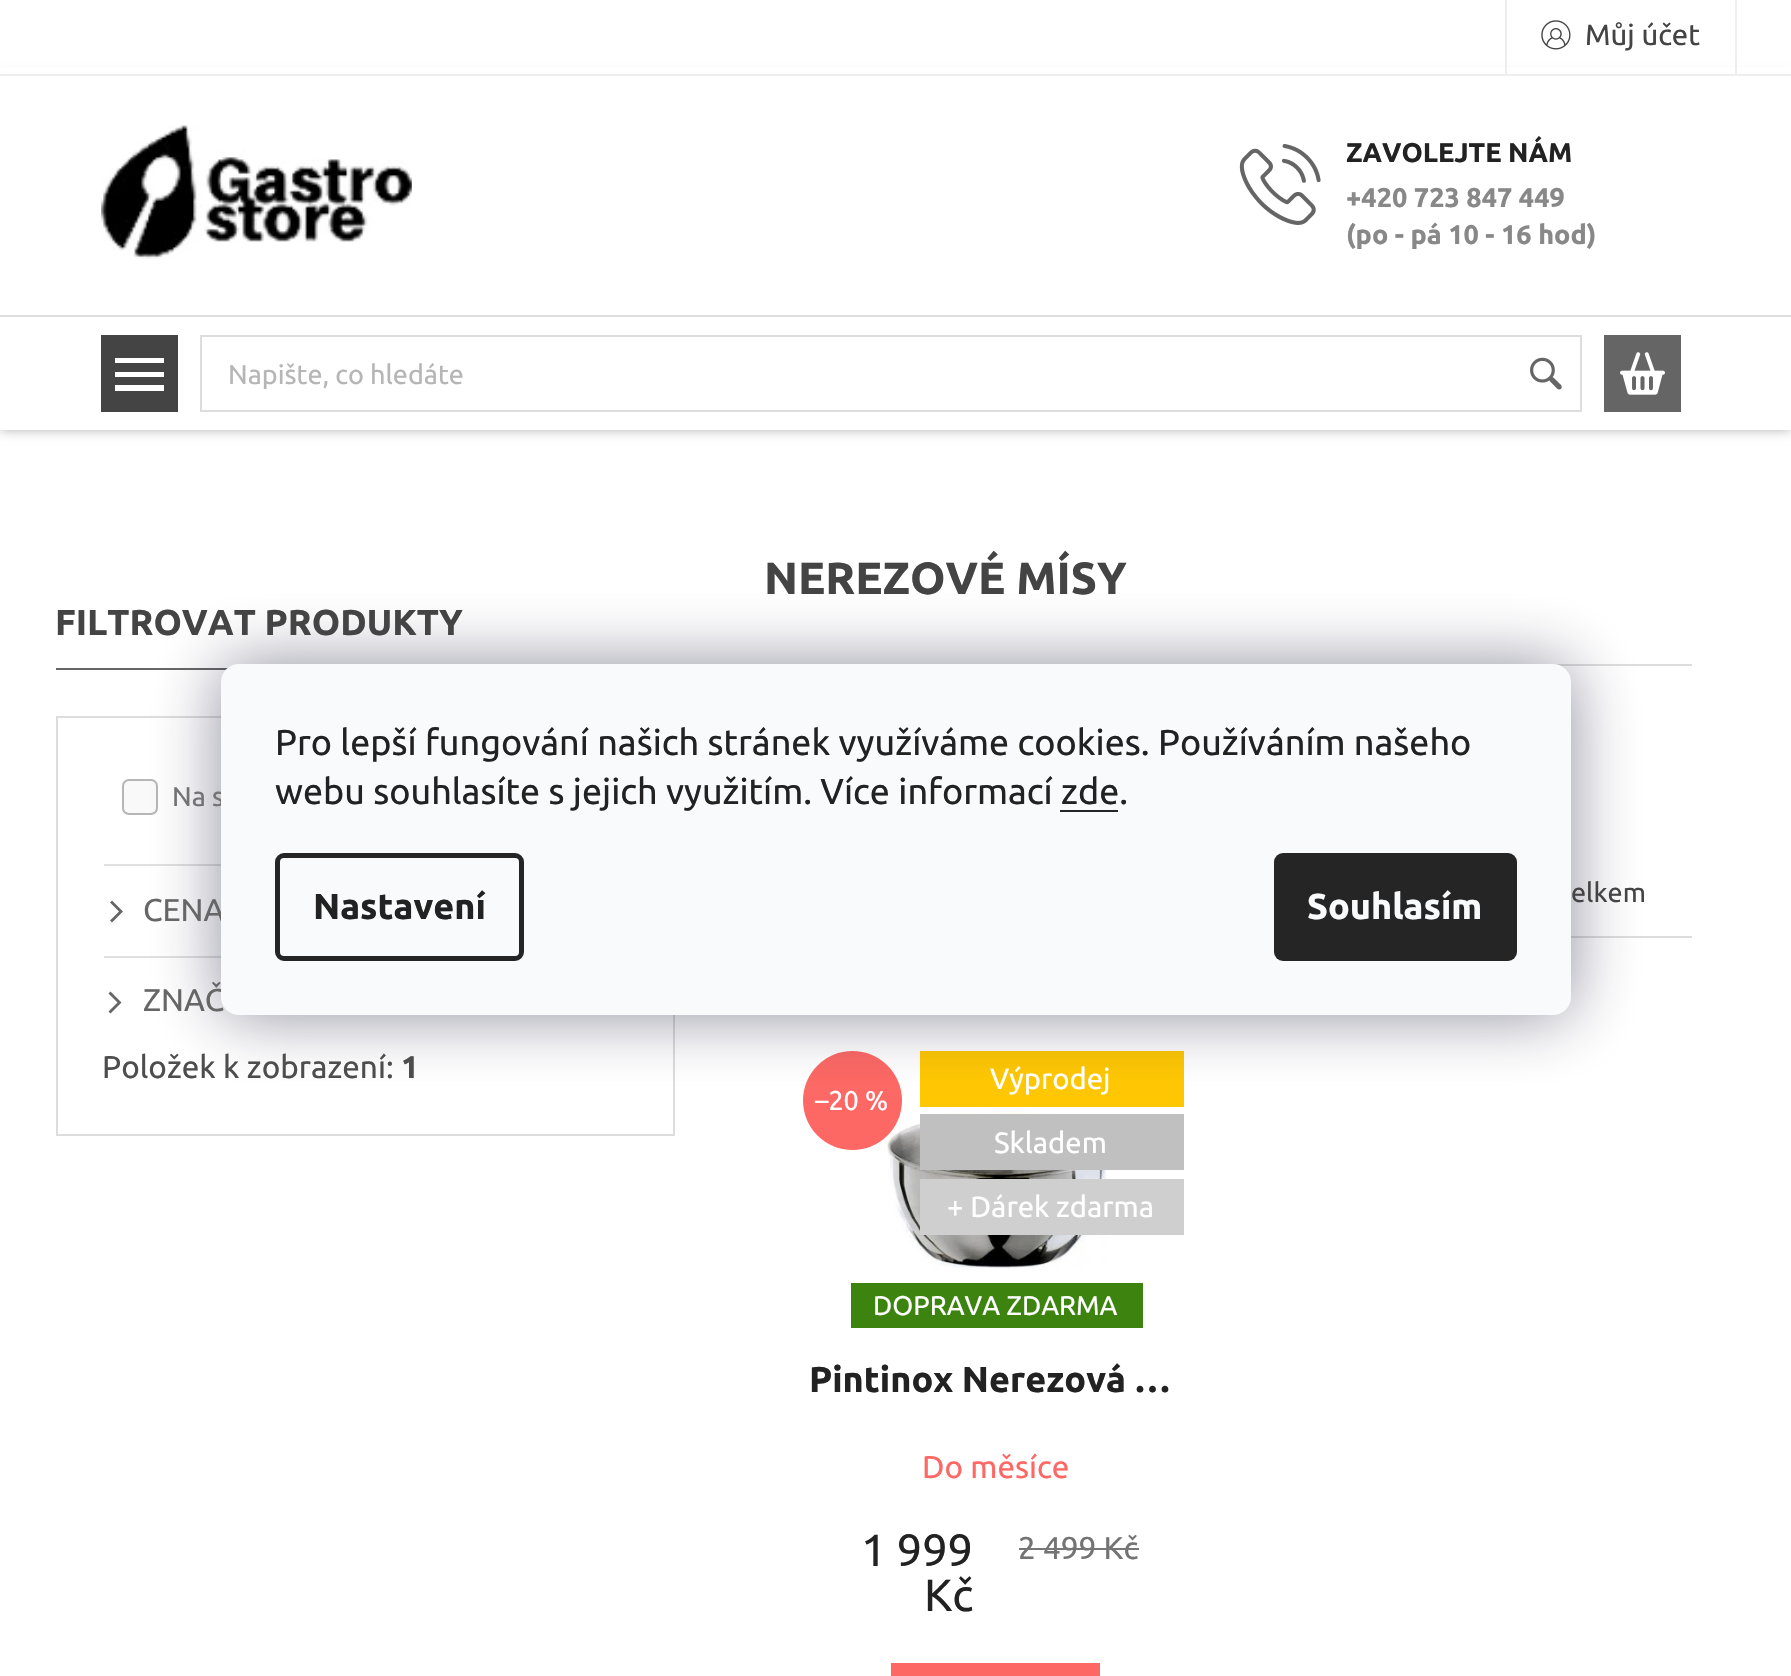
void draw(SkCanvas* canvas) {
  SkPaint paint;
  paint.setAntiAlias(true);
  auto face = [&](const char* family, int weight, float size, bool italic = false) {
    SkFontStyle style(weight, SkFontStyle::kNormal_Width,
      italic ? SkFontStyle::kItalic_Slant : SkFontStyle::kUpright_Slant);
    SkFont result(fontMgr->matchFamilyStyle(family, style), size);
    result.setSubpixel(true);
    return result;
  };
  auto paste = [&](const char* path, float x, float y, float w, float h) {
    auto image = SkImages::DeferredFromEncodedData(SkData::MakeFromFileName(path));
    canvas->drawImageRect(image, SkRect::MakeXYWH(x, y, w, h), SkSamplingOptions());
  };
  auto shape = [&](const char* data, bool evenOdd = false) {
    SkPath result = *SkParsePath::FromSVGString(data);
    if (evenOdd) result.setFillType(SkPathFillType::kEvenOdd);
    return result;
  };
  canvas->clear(0xffffffff);
  paint.setColor(0x4d000000);
  paint.setMaskFilter(SkMaskFilter::MakeBlur(kNormal_SkBlurStyle, 5.5f));
  canvas->drawRect(SkRect::MakeXYWH(0, 77, 1791, 353), paint);
  paint.setMaskFilter(nullptr);
  {
    const struct { float x, y, w, h; SkColor color; } items[] = {
      {0, 67, 1791, 363, 0xffffffff},
      {0, 74, 1791, 2, 0xffeeeeee},
      {1735, 0, 2, 74, 0xffeeeeee},
      {1505, 0, 2, 74, 0xffeeeeee},
    };
    for (auto [x, y, w, h, color] : items) {
      paint.setColor(color);
      canvas->drawRect(SkRect::MakeXYWH(x, y, w, h), paint);
    }
  }
  paste("img/1.png", 1541, 20, 30, 30);
  paste("img/2.png", 101, 125, 311, 134);
  paste("img/3.png", 1239, 144, 82, 81);
  paint.setColor(0xff444444);
  canvas->drawRect(SkRect::MakeXYWH(101, 335, 77, 77), paint);
  paint.setColor(0xffffffff);
  canvas->drawPath(shape("M115 391H164V385H115ZM115 377H164V372H115ZM115 358V363H164V358Z"), paint);
  paint.setStroke(true);
  paint.setStrokeWidth(2);
  paint.setColor(0xffdddddd);
  canvas->drawRect(SkRect::MakeXYWH(201, 336, 1380, 75), paint);
  paste("img/4.png", 1530, 357, 32, 33);
  paint.setStroke(false);
  paint.setColor(0xff656565);
  canvas->drawRect(SkRect::MakeXYWH(1604, 335, 77, 77), paint);
  paste("img/5.png", 1620, 352, 45, 43);
  paint.setColor(0xffdddddd);
  canvas->drawRect(SkRect::MakeXYWH(0, 315, 1791, 2), paint);
  paint.setColor(0xff666666);
  canvas->drawRect(SkRect::MakeXYWH(56, 668, 172, 2), paint);
  paint.setStroke(true);
  paint.setColor(0xffdddddd);
  canvas->drawRect(SkRect::MakeXYWH(57, 717, 617, 418), paint);
  paint.setStroke(false);
  paint.setColor(0xfff9f9f9);
  canvas->drawRoundRect(SkRect::MakeXYWH(123, 780, 34, 34), 6, 6, paint);
  paint.setStroke(true);
  paint.setColor(0xffb6b6b6);
  canvas->drawRoundRect(SkRect::MakeXYWH(123, 780, 34, 34), 6, 6, paint);
  paint.setStroke(false);
  paint.setColor(0xffe0e0e0);
  canvas->drawRect(SkRect::MakeXYWH(104, 864, 117, 2), paint);
  paint.setColor(0xff666666);
  canvas->drawPath(shape("M112 900.5L110 902.5L119 911.5L110 920.5L112 922.5L123 911.5Z"), paint);
  paint.setColor(0xffe0e0e0);
  canvas->drawRect(SkRect::MakeXYWH(104, 956, 117, 2), paint);
  paint.setColor(0xff666666);
  canvas->drawPath(shape("M110.5 991.5L108.5 993.5L117.5 1002.5L108.5 1011.5L110.5 1013.5L121.5 1002.5Z"), paint);
  paint.setColor(0xffdddddd);
  canvas->drawRect(SkRect::MakeXYWH(1553, 664, 139, 2), paint);
  canvas->drawRect(SkRect::MakeXYWH(1571, 936, 121, 2), paint);
  paste("img/6.png", 887, 1111, 221, 159);
  paint.setColor(0xfffd6864);
  canvas->drawCircle(852.5f, 1100.5f, 49.5f, paint);
  {
    const struct { float x, y, w, h; SkColor color; } items[] = {
      {920, 1051, 264, 56, 0xffffc702},
      {920, 1114, 264, 56, 0xffc0c0c0},
      {920, 1179, 264, 56, 0xffcfcfcf},
      {851, 1283, 292, 45, 0xff3c840f},
      {891, 1663, 209, 13, 0xfffd6864},
    };
    for (auto [x, y, w, h, color] : items) {
      paint.setColor(color);
      canvas->drawRect(SkRect::MakeXYWH(x, y, w, h), paint);
    }
  }
  paint.setColor(0x801b1939);
  paint.setMaskFilter(SkMaskFilter::MakeBlur(kNormal_SkBlurStyle, 34));
  canvas->drawRoundRect(SkRect::MakeXYWH(221, 664, 1350, 351), 18, 18, paint);
  paint.setMaskFilter(nullptr);
  auto f0 = face("Ubuntu", 400, 29.25f);
  paint.setColor(0xff444444);
  canvas->drawString("Můj účet", 1585, 45, f0, paint);
  auto f1 = face("Ubuntu", 700, 27);
  paint.setColor(0xff222222);
  canvas->drawString("ZAVOLEJTE NÁM", 1346, 162, f1, paint);
  paint.setColor(0xff888888);
  canvas->drawString("+420 723 847 449", 1346, 207, f1, paint);
  canvas->drawString("(po - pá 10 - 16 hod)", 1346, 244, f1, paint);
  auto f2 = face("Ubuntu", 400, 27);
  paint.setColor(0xffb6b6b6);
  canvas->drawString("Napište, co hledáte", 228, 384, f2, paint);
  auto f3 = face("Ubuntu", 700, 36);
  paint.setColor(0xff444444);
  canvas->drawString("FILTROVAT PRODUKTY", 55, 635, f3, paint);
  paint.setColor(0xff737373);
  canvas->drawString("Na s", 172, 806, f2, paint);
  auto f4 = face("Ubuntu", 400, 31.5f);
  paint.setColor(0xff666666);
  canvas->drawString("CENA", 143, 921, f4, paint);
  canvas->drawString("ZNAČ", 143, 1011, f4, paint);
  paint.setColor(0xff4d4d4d);
  canvas->drawString("Položek k zobrazení:", 102, 1078, f4, paint);
  auto f5 = face("Ubuntu", 700, 31.5f);
  canvas->drawString("1", 401, 1078, f5, paint);
  auto f6 = face("Ubuntu", 700, 45);
  paint.setColor(0xff444444);
  canvas->drawString("NEREZOVÉ MÍSY", 764, 594, f6, paint);
  canvas->drawString("elkem", 1571, 902, f2, paint);
  paint.setColor(0xffffffff);
  canvas->drawString("–20 %", 815, 1110, f2, paint);
  {
    const struct { const char* s; float x, y; } items[] = {
      {"Výprodej", 990, 1089},
      {"Skladem", 994, 1153},
      {"+ Dárek zdarma", 947, 1217},
    };
    for (auto [s, x, y] : items) {
      canvas->drawString(s, x, y, f0, paint);
    }
  }
  canvas->drawString("DOPRAVA ZDARMA", 873, 1315, f2, paint);
  paint.setColor(0xff222222);
  canvas->drawString("Pintinox Nerezová …", 809, 1392, f3, paint);
  paint.setColor(0xfffd6864);
  canvas->drawString("Do měsíce", 922, 1478, f4, paint);
  auto f7 = face("Ubuntu", 400, 45);
  paint.setColor(0xff222222);
  canvas->drawString("1 999", 861, 1566, f7, paint);
  canvas->drawString("Kč", 924, 1611, f7, paint);
  paint.setColor(0xff737373);
  canvas->drawString("2 499 Kč", 1018, 1559, f4, paint);
  paint.setColor(0xff767676);
  canvas->drawRect(SkRect::MakeXYWH(1019, 1548, 120, 2), paint);
  paint.setColor(0xfff8fafb);
  canvas->drawRoundRect(SkRect::MakeXYWH(221, 664, 1350, 351), 18, 18, paint);
  auto f8 = face("Ubuntu", 400, 36);
  paint.setColor(0xff222222);
  canvas->drawString("Pro lepší fungování našich stránek využíváme cookies. Používáním našeho", 275, 755, f8, paint);
  canvas->drawString("webu souhlasíte s jejich využitím. Více informací zde.", 275, 804, f8, paint);
  paint.setColor(0xff252525);
  canvas->drawRect(SkRect::MakeXYWH(1060, 810, 58, 2), paint);
  paint.setStroke(true);
  paint.setStrokeWidth(5);
  canvas->drawRoundRect(SkRect::MakeXYWH(277.5f, 855.5f, 244, 103), 6.5f, 6.5f, paint);
  paint.setStroke(false);
  paint.setColor(0xff222222);
  canvas->drawString("Nastavení", 313, 919, f3, paint);
  paint.setColor(0xff252525);
  canvas->drawRoundRect(SkRect::MakeXYWH(1274, 853, 243, 108), 9, 9, paint);
  paint.setColor(0xfff8fafb);
  canvas->drawString("Souhlasím", 1307, 919, f3, paint);
}
